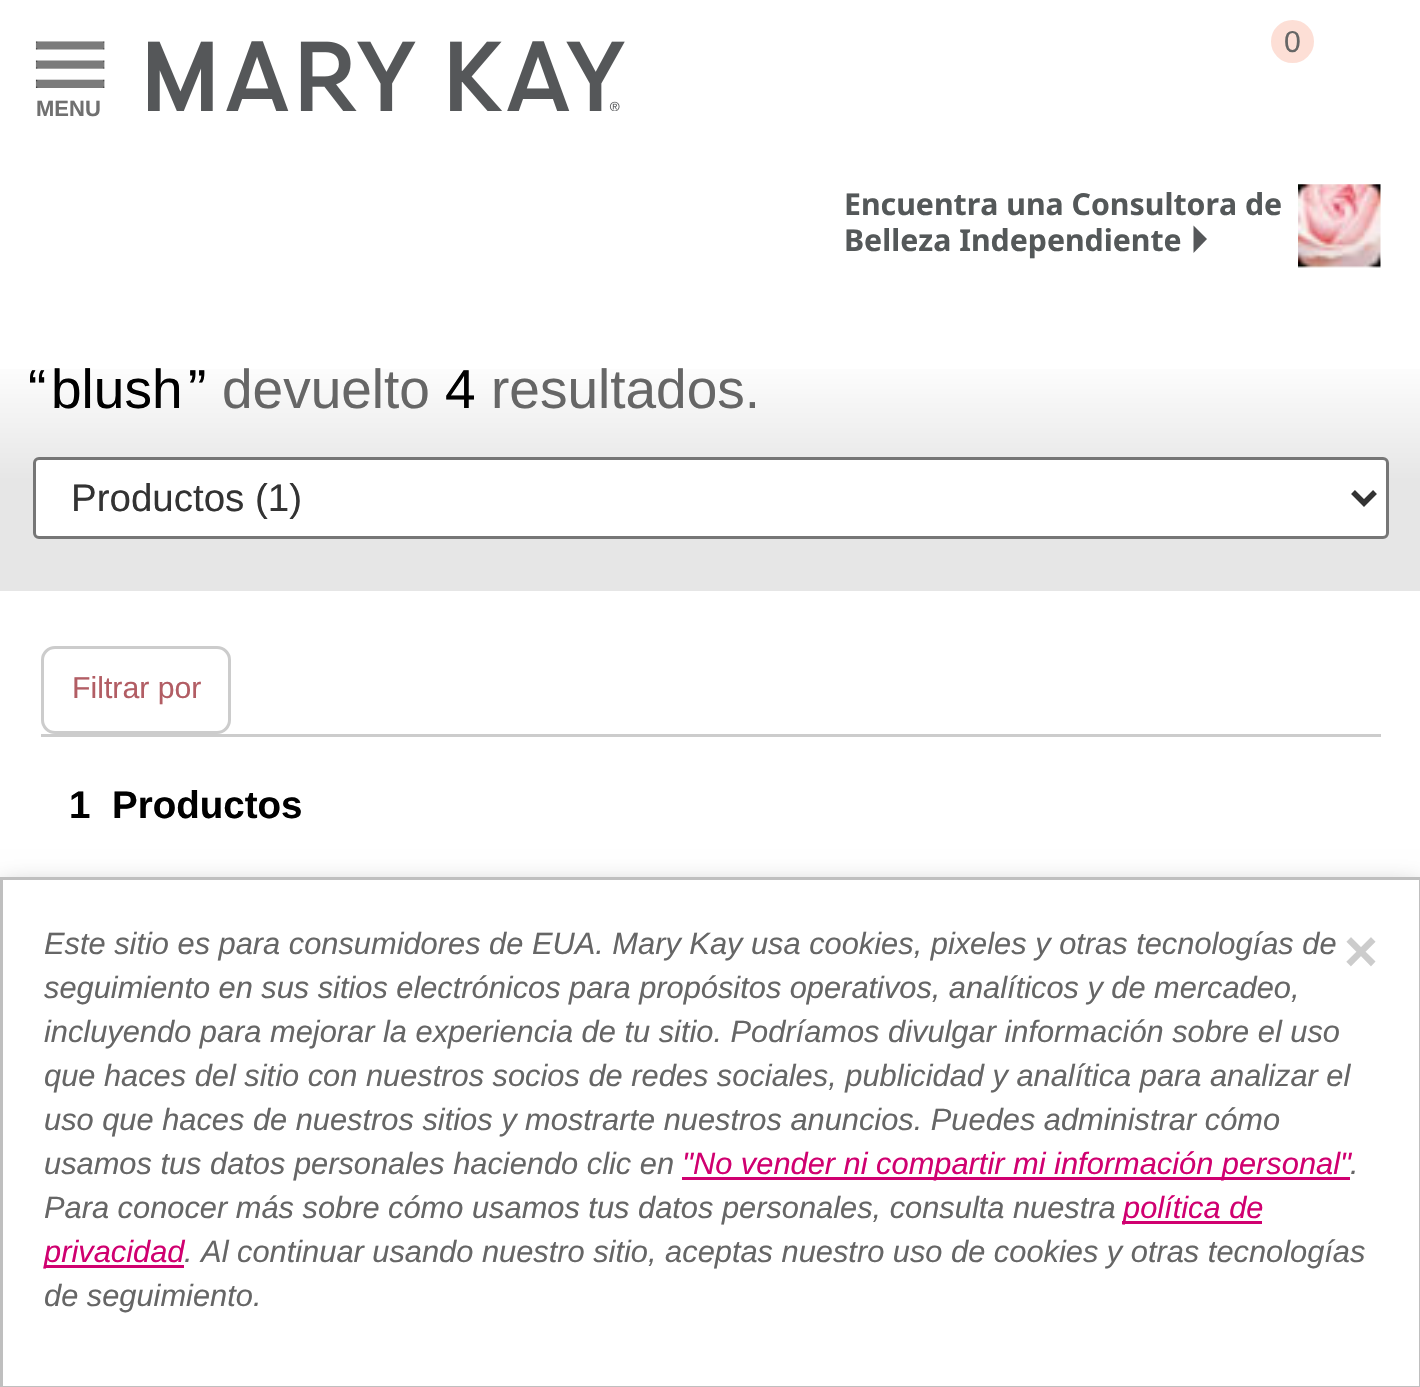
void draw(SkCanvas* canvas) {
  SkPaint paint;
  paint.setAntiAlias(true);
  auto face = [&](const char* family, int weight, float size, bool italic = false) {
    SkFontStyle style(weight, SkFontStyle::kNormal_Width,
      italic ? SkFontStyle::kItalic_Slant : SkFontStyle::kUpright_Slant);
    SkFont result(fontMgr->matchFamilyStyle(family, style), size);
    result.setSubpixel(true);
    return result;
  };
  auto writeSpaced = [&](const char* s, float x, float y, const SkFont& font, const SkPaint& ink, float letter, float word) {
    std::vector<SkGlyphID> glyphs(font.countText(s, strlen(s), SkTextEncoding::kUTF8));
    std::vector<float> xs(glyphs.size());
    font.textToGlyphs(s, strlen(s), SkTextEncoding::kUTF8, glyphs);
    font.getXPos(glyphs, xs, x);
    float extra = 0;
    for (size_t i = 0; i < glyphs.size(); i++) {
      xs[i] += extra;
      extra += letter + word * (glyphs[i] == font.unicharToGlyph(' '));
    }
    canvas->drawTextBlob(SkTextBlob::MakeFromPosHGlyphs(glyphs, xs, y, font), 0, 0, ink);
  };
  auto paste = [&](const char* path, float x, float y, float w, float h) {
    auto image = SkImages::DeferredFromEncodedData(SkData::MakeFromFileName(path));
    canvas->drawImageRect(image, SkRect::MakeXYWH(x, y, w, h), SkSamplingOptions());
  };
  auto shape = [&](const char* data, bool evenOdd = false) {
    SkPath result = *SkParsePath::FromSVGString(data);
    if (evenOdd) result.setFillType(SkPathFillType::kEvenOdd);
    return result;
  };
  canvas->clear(0xffffffff);
  paint.setColor(0xfffddfd6);
  canvas->drawCircle(1292.5f, 41.5f, 24.5f, paint);
  paint.setStroke(true);
  paint.setStrokeWidth(6);
  paint.setColor(0xffffffff);
  canvas->drawCircle(1292.5f, 41.5f, 24.5f, paint);
  paste("img/1.png", 35, 41, 70, 47);
  paste("img/2.png", 148, 41, 477, 70);
  paint.setStroke(false);
  paint.setColor(0xff555759);
  canvas->drawPath(shape("M1193.5 253V225.5L1207 239Z"), paint);
  paste("img/3.png", 1298, 184, 83, 84);
  {
    const SkColor colors[] = {0xffffffff, 0xffe6e6e6};
    const float stops[] = {0.2f, 0.6f};
    const SkPoint ends[] = {{711, 294}, {711, 605}};
    paint.setShader(SkGradientShader::MakeLinear(ends, colors, stops, 2, SkTileMode::kClamp));
    paint.setAlpha(255);
  }
  canvas->drawRect(SkRect::MakeXYWH(0, 369, 1420, 222), paint);
  paint.setShader(nullptr);
  paint.setColor(0xffffffff);
  canvas->drawRoundRect(SkRect::MakeXYWH(34.5f, 458.5f, 1353, 79), 4.5f, 4.5f, paint);
  paint.setStroke(true);
  paint.setStrokeWidth(3);
  paint.setColor(0xff767676);
  canvas->drawRoundRect(SkRect::MakeXYWH(34.5f, 458.5f, 1353, 79), 4.5f, 4.5f, paint);
  paint.setStrokeWidth(5.5f);
  paint.setColor(0xff333333);
  canvas->drawPath(shape("M1353 492L1364 503L1375 492"), paint);
  paint.setStroke(false);
  paint.setColor(0xffcccccc);
  canvas->drawRect(SkRect::MakeXYWH(41, 734, 1340, 3), paint);
  paint.setStroke(true);
  paint.setStrokeWidth(3);
  canvas->drawRoundRect(SkRect::MakeXYWH(42.5f, 647.5f, 187, 85), 12.5f, 12.5f, paint);
  paint.setStroke(false);
  paint.setColor(0xff999999);
  paint.setMaskFilter(SkMaskFilter::MakeBlur(kNormal_SkBlurStyle, 14));
  canvas->drawRect(SkRect::MakeXYWH(0, 891, 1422, 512), paint);
  paint.setMaskFilter(nullptr);
  paint.setColor(0xffffffff);
  canvas->drawRect(SkRect::MakeXYWH(1.5f, 878.5f, 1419, 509), paint);
  paint.setStroke(true);
  paint.setColor(0xffbfbfbf);
  canvas->drawRect(SkRect::MakeXYWH(1.5f, 878.5f, 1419, 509), paint);
  paint.setStroke(false);
  {
    const struct { float x, y, w, h; SkColor color; } items[] = {
      {682, 1177, 668, 3, 0xffd00070},
      {1122, 1221, 140, 3, 0xffd00070},
      {44, 1265, 140, 3, 0xffd00070},
    };
    for (auto [x, y, w, h, color] : items) {
      paint.setColor(color);
      canvas->drawRect(SkRect::MakeXYWH(x, y, w, h), paint);
    }
  }
  auto f0 = face("Liberation Sans", 400, 30.25f);
  paint.setColor(0xff666666);
  canvas->drawString("0", 1284, 52, f0, paint);
  auto f1 = face("Liberation Sans", 700, 22);
  paint.setColor(0xff707070);
  canvas->drawString("MENU", 36, 116, f1, paint);
  auto f2 = face("Noto Sans", 700, 30.25f);
  paint.setColor(0xff545859);
  canvas->drawString("Encuentra una Consultora de", 844, 215, f2, paint);
  canvas->drawString("Belleza Independiente", 844, 251, f2, paint);
  auto f3 = face("Liberation Sans", 400, 55);
  paint.setColor(0xff000000);
  {
    const struct { const char* s; float x, y; } items[] = {
      {"“", 28, 408},
      {"blush", 51, 408},
      {"”", 188, 408},
    };
    for (auto [s, x, y] : items) {
      canvas->drawString(s, x, y, f3, paint);
    }
  }
  paint.setColor(0xff666666);
  canvas->drawString("devuelto", 222, 408, f3, paint);
  paint.setColor(0xff000000);
  canvas->drawString("4", 445, 408, f3, paint);
  paint.setColor(0xff666666);
  canvas->drawString("resultados.", 491, 408, f3, paint);
  auto f4 = face("Liberation Sans", 400, 38.5f);
  paint.setColor(0xff333333);
  canvas->drawString("Productos (1)", 71, 511, f4, paint);
  paint.setColor(0xffb25d64);
  canvas->drawString("Filtrar por", 72, 698, f0, paint);
  auto f5 = face("Liberation Sans", 700, 38.5f);
  paint.setColor(0xff000000);
  canvas->drawString("1", 69, 818, f5, paint);
  canvas->drawString("Productos", 112, 818, f5, paint);
  auto f6 = face("Liberation Sans", 400, 30.8f, true);
  paint.setColor(0xff666666);
  canvas->drawString("Este sitio es para consumidores de EUA. Mary Kay usa cookies, pixeles y otras tecnologías de", 44, 954, f6, paint);
  writeSpaced("seguimiento en sus sitios electrónicos para propósitos operativos, analíticos y de mercadeo,", 44, 998, f6, paint, 0, -0.1f);
  {
    const struct { const char* s; float x, y; } items[] = {
      {"incluyendo para mejorar la experiencia de tu sitio. Podríamos divulgar información sobre el uso", 44, 1042},
      {"que haces del sitio con nuestros socios de redes sociales, publicidad y analítica para analizar el", 44, 1086},
      {"uso que haces de nuestros sitios y mostrarte nuestros anuncios. Puedes administrar cómo", 44, 1130},
      {"usamos tus datos personales haciendo clic en", 44, 1174},
    };
    for (auto [s, x, y] : items) {
      canvas->drawString(s, x, y, f6, paint);
    }
  }
  paint.setColor(0xffd00070);
  canvas->drawString("\"No vender ni compartir mi información personal\"", 682, 1174, f6, paint);
  paint.setColor(0xff666666);
  canvas->drawString(".", 1350, 1174, f6, paint);
  canvas->drawString("Para conocer más sobre cómo usamos tus datos personales, consulta nuestra", 44, 1218, f6, paint);
  paint.setColor(0xffd00070);
  canvas->drawString("política de", 1123, 1218, f6, paint);
  canvas->drawString("privacidad", 44, 1262, f6, paint);
  paint.setColor(0xff666666);
  canvas->drawString(". Al continuar usando nuestro sitio, aceptas nuestro uso de cookies y otras tecnologías", 184, 1262, f6, paint);
  canvas->drawString("de seguimiento.", 44, 1306, f6, paint);
  auto f7 = face("Liberation Sans", 700, 58);
  paint.setColor(0xffcccccc);
  canvas->drawString("×", 1344, 971, f7, paint);
}
